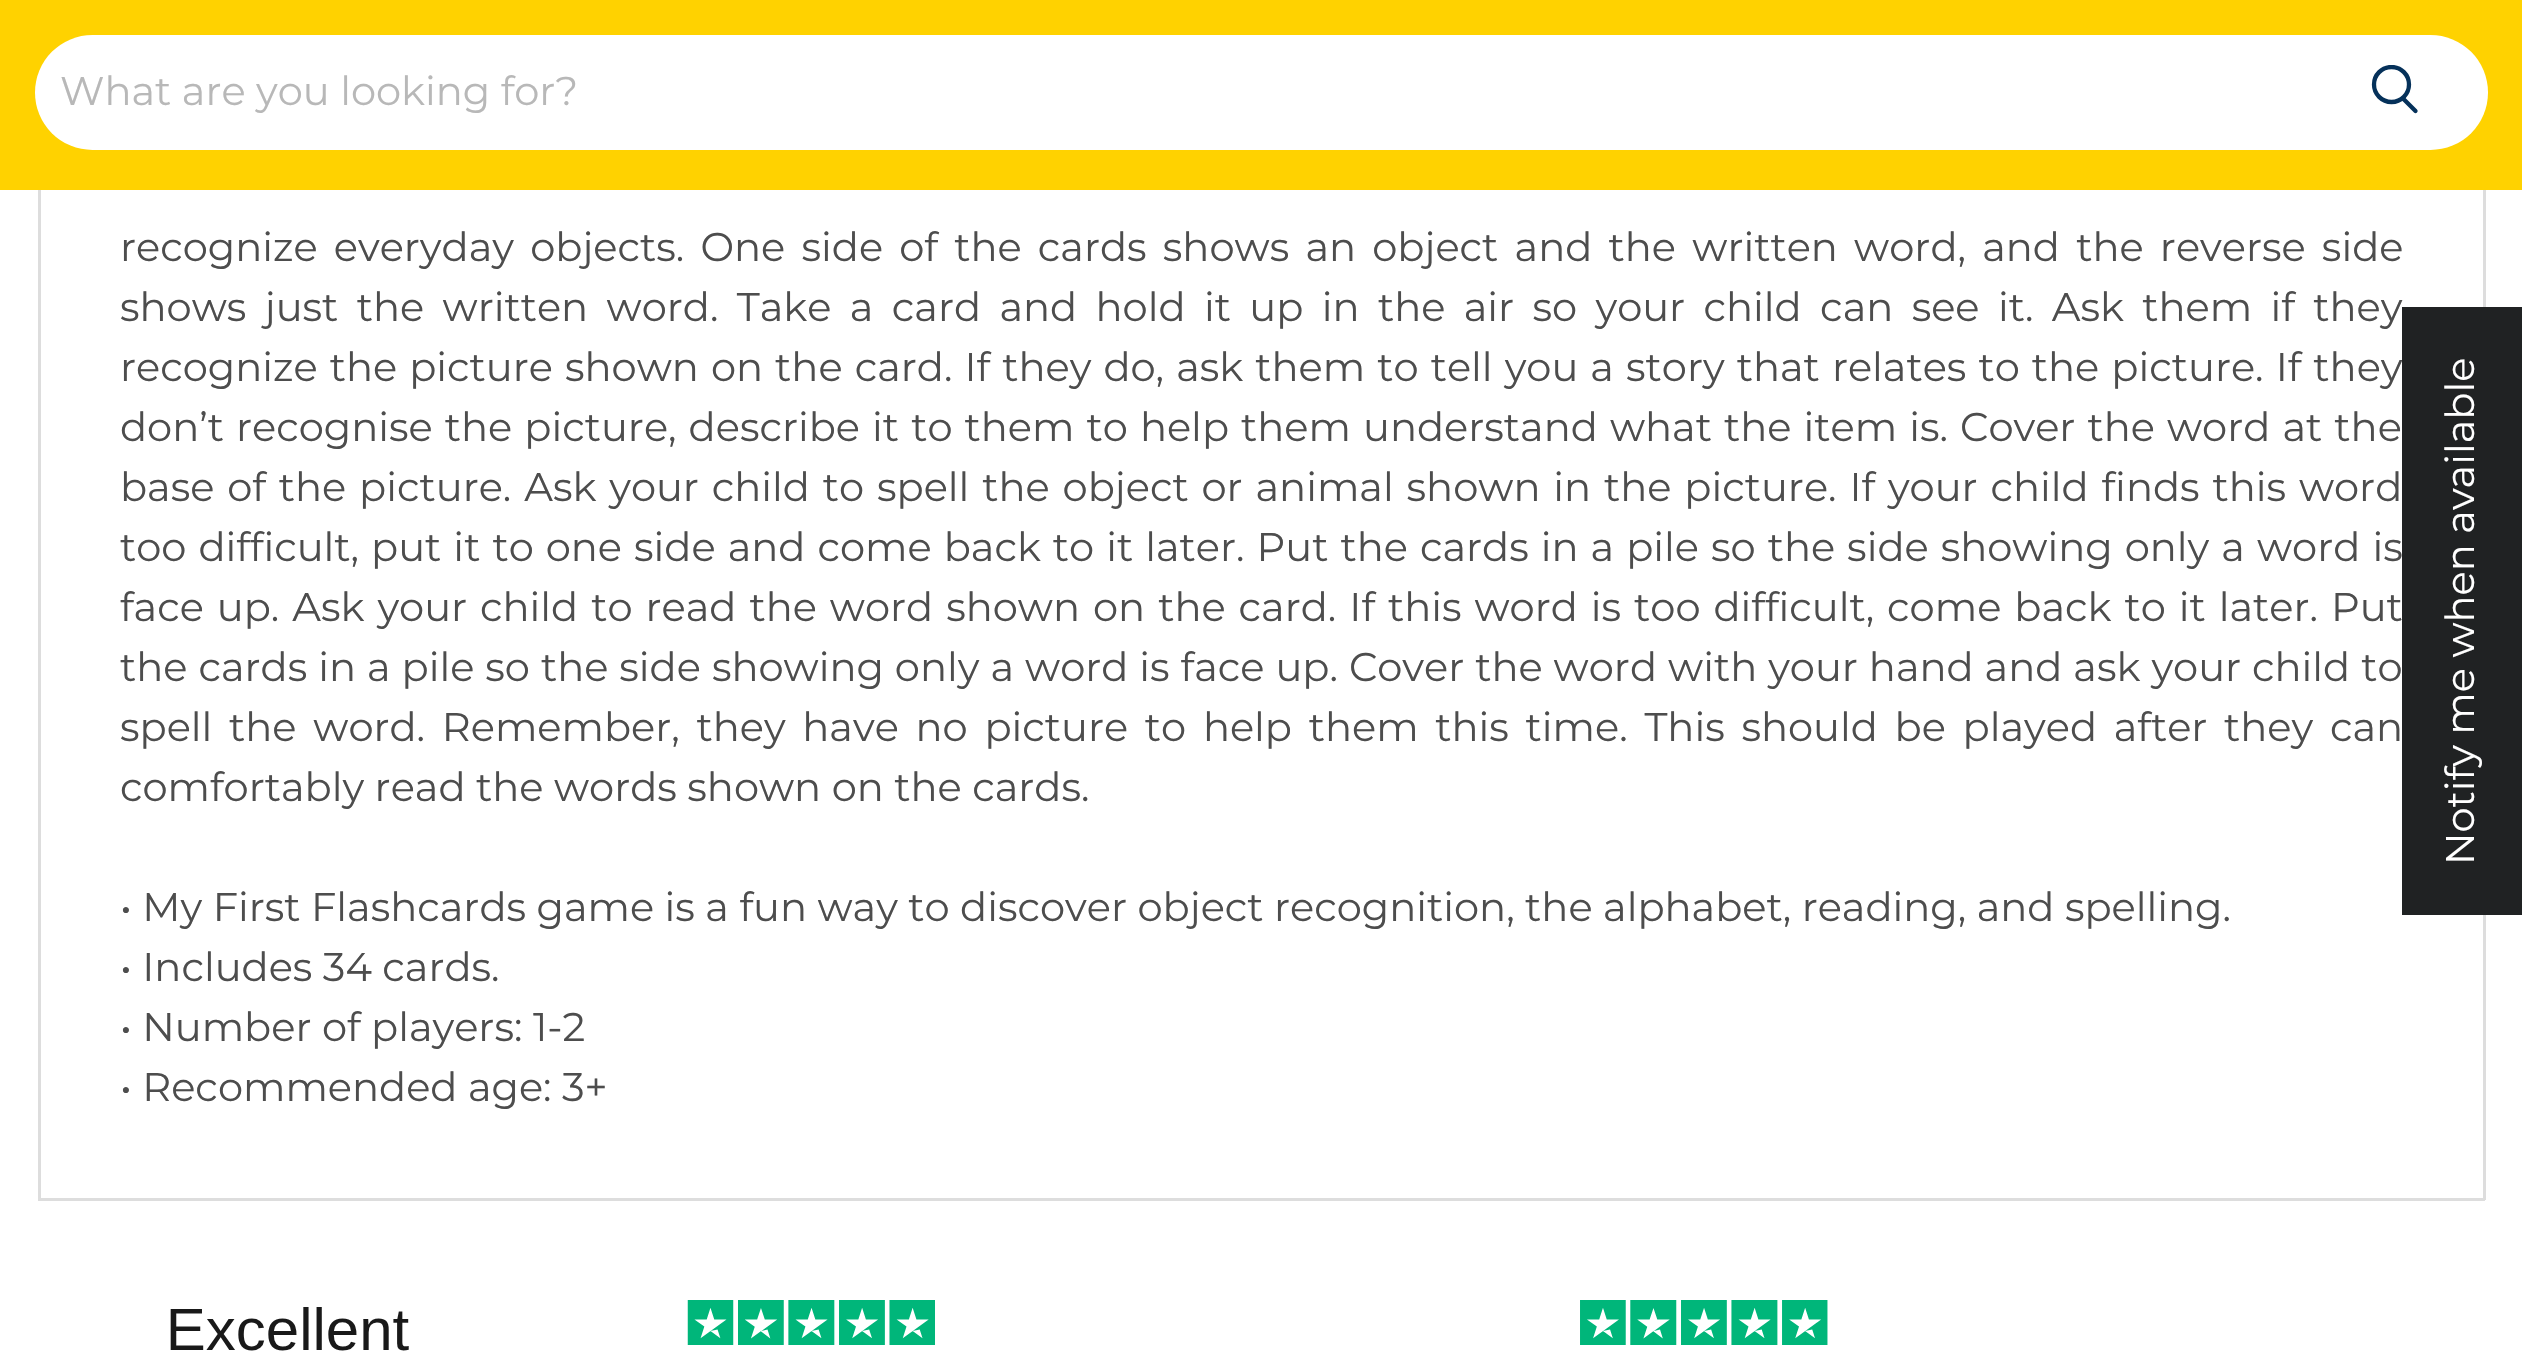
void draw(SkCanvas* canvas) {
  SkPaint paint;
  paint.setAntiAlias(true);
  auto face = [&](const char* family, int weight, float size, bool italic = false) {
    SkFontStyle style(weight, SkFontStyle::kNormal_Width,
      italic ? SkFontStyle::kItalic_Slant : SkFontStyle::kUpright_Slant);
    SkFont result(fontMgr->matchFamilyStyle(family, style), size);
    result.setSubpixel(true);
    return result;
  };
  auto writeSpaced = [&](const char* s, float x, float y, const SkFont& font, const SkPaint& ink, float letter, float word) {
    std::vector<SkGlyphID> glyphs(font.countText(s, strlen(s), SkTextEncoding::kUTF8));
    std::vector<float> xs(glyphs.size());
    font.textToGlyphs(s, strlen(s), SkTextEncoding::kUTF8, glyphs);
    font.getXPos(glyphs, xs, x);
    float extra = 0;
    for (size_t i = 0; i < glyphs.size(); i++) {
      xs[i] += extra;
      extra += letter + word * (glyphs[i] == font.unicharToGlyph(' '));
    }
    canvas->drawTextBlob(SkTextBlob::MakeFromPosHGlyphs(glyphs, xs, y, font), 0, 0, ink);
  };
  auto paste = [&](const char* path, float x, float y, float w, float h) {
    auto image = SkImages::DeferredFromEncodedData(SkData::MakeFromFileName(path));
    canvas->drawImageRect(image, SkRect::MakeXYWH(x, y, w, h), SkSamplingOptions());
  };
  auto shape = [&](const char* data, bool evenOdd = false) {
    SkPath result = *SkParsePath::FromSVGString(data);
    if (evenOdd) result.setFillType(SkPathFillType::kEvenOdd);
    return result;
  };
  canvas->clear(0xffffffff);
  paint.setColor(0xffffd200);
  canvas->drawRect(SkRect::MakeXYWH(0, 0, 2522, 190), paint);
  paint.setColor(0xffffffff);
  canvas->drawRoundRect(SkRect::MakeXYWH(35, 35, 2453, 115), 57.5f, 57.5f, paint);
  paint.setStroke(true);
  paint.setStrokeWidth(4.3f);
  paint.setStrokeCap(SkPaint::kRound_Cap);
  paint.setColor(0xff05315a);
  canvas->drawPath(shape("M2415.5 111L2403.5 99"), paint);
  canvas->save();
  canvas->clipRect(SkRect::MakeXYWH(2370, 65, 50, 53));
  paint.setStrokeCap(SkPaint::kButt_Cap);
  canvas->drawCircle(2391.5f, 84.5f, 17.5f, paint);
  canvas->restore();
  paint.setStroke(false);
  {
    const struct { float x, y, w, h; SkColor color; } items[] = {
      {2483, 190, 3, 1010, 0xffdddddd},
      {38, 1198, 2447, 3, 0xffdddddd},
      {38, 190, 3, 1010, 0xffdddddd},
    };
    for (auto [x, y, w, h, color] : items) {
      paint.setColor(color);
      canvas->drawRect(SkRect::MakeXYWH(x, y, w, h), paint);
    }
  }
  paste("img/1.png", 170, 1300, 1658, 51);
  auto f0 = face("Montserrat", 400, 40);
  paint.setColor(0xffb8b8b8);
  canvas->drawString("What are you looking for?", 60, 105, f0, paint);
  paint.setColor(0xff4d4d4d);
  writeSpaced("recognize everyday objects. One side of the cards shows an object and the written word, and the reverse side", 120, 261, f0, paint, 0, 5.75f);
  writeSpaced("shows just the written word. Take a card and hold it up in the air so your child can see it. Ask them if they", 120, 321, f0, paint, 0, 7.9f);
  writeSpaced("recognize the picture shown on the card. If they do, ask them to tell you a story that relates to the picture. If they", 120, 381, f0, paint, 0, 1.6f);
  writeSpaced("don’t recognise the picture, describe it to them to help them understand what the item is. Cover the word at the", 120, 441, f0, paint, 0, 1.6f);
  writeSpaced("base of the picture. Ask your child to spell the object or animal shown in the picture. If your child finds this word", 120, 501, f0, paint, 0, 2.4f);
  writeSpaced("too difficult, put it to one side and come back to it later. Put the cards in a pile so the side showing only a word is", 120, 561, f0, paint, 0, 1.55f);
  writeSpaced("face up. Ask your child to read the word shown on the card. If this word is too difficult, come back to it later. Put", 120, 621, f0, paint, 0, 2.5f);
  writeSpaced("the cards in a pile so the side showing only a word is face up. Cover the word with your hand and ask your child to", 120, 681, f0, paint, 0, 0.5f);
  writeSpaced("spell the word. Remember, they have no picture to help them this time. This should be played after they can", 120, 741, f0, paint, 0, 6.25f);
  {
    const struct { const char* s; float x, y; } items[] = {
      {"comfortably read the words shown on the cards.", 120, 801},
      {"• My First Flashcards game is a fun way to discover object recognition, the alphabet, reading, and spelling.", 120, 921},
      {"• Includes 34 cards.", 120, 981},
      {"• Number of players: 1-2", 120, 1041},
      {"• Recommended age: 3+", 120, 1101},
    };
    for (auto [s, x, y] : items) {
      canvas->drawString(s, x, y, f0, paint);
    }
  }
  paint.setColor(0xff202223);
  canvas->drawRect(SkRect::MakeXYWH(2402, 307, 120, 608), paint);
  paint.setColor(0xffffffff);
  canvas->save();
  canvas->rotate(-90, 2474, 865);
  canvas->drawString("Notify me when available", 2474, 865, f0, paint);
  canvas->restore();
}
